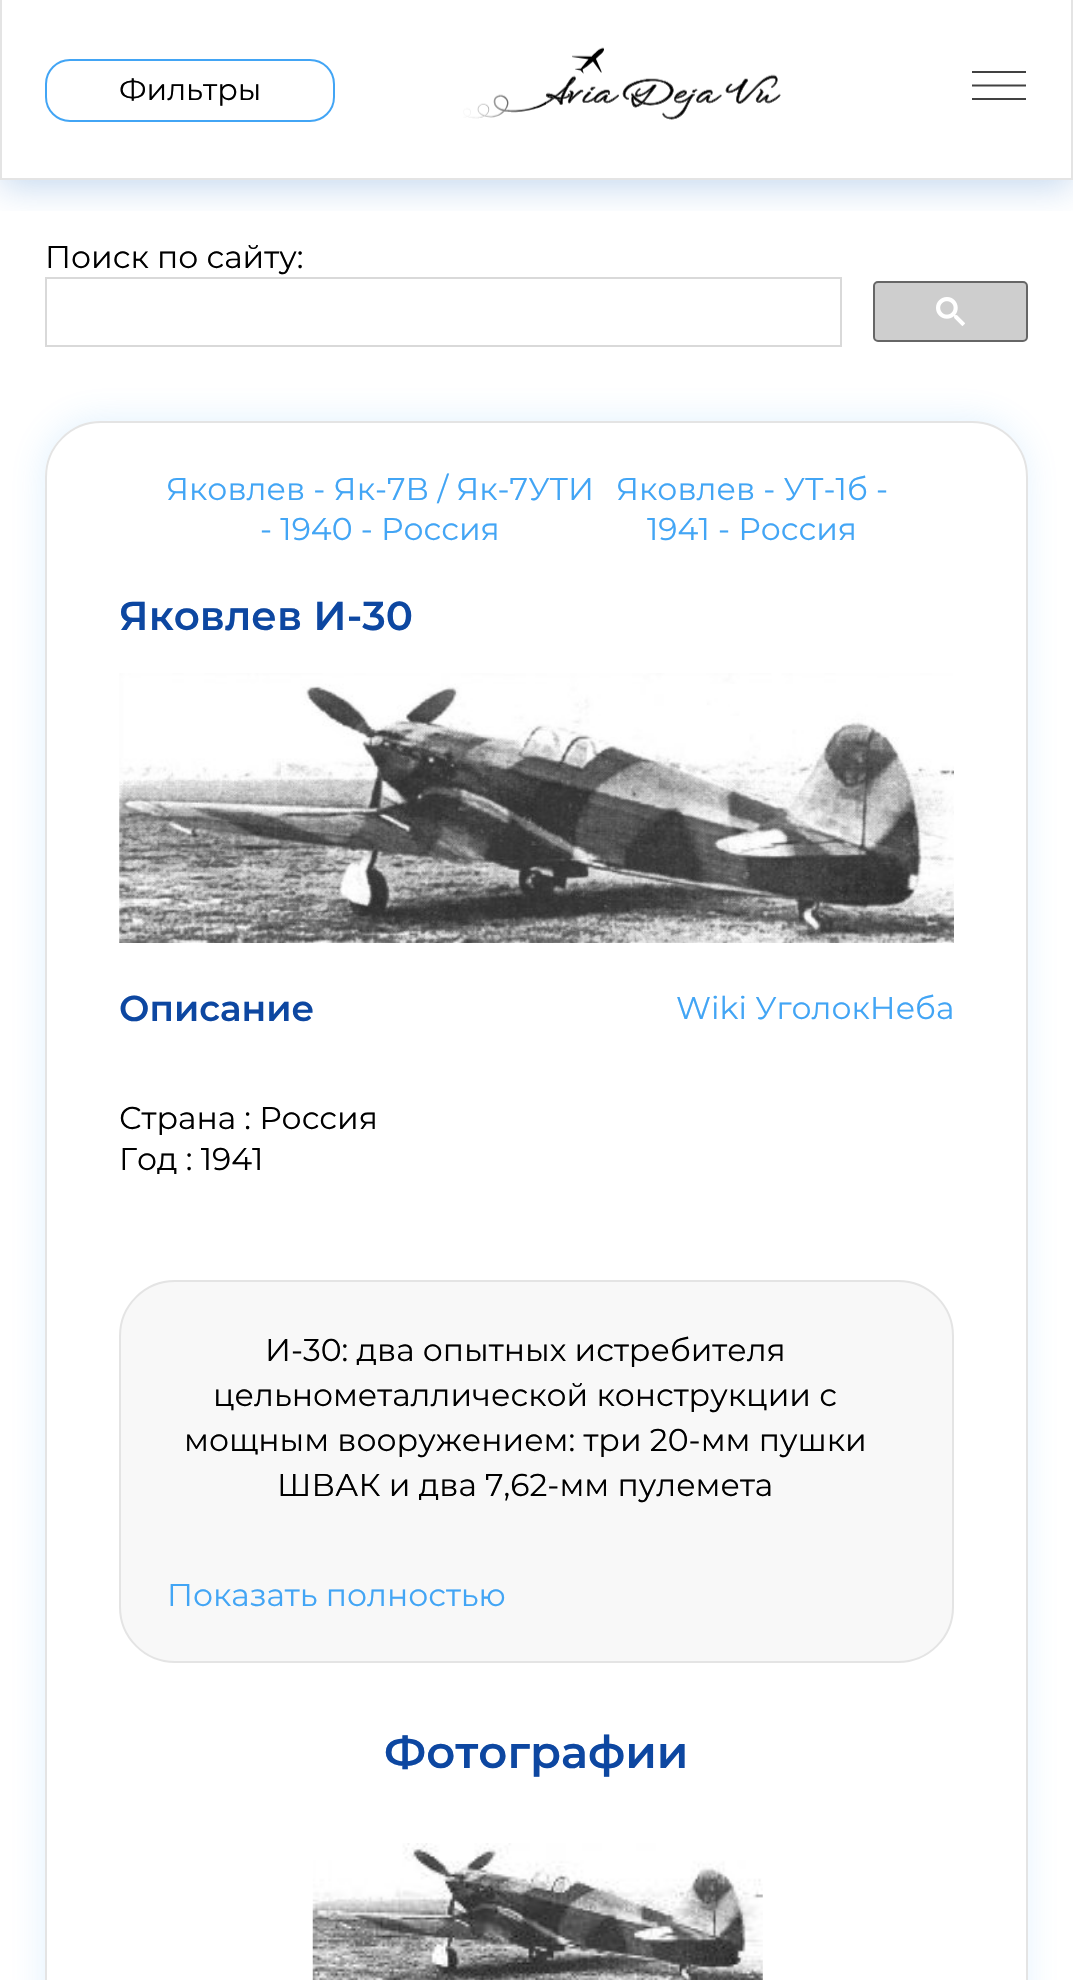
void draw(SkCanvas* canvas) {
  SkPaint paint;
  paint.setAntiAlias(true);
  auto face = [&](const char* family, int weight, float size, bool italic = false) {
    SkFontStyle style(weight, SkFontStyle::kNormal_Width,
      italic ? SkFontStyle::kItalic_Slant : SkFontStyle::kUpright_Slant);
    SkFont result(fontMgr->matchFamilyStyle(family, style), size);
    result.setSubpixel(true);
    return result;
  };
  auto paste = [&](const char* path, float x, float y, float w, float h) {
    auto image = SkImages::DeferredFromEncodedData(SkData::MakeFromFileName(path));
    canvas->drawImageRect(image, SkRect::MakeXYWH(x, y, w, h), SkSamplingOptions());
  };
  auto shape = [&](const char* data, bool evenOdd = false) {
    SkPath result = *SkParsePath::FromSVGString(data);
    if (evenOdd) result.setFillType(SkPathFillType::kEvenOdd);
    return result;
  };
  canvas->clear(0xffffffff);
  canvas->save();
  canvas->clipRect(SkRect::MakeXYWH(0, 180, 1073, 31));
  paint.setColor(0x401565c0);
  paint.setMaskFilter(SkMaskFilter::MakeBlur(kNormal_SkBlurStyle, 17));
  canvas->drawRect(SkRect::MakeXYWH(0, 7, 1073, 180), paint);
  paint.setMaskFilter(nullptr);
  canvas->restore();
  {
    const struct { float x, y, w, h; SkColor color; } items[] = {
      {1071, 0, 2, 180, 0xffe4e4e4},
      {0, 178, 1073, 2, 0xffe4e4e4},
      {0, 0, 2, 180, 0xffe4e4e4},
    };
    for (auto [x, y, w, h, color] : items) {
      paint.setColor(color);
      canvas->drawRect(SkRect::MakeXYWH(x, y, w, h), paint);
    }
  }
  paint.setStroke(true);
  paint.setStrokeWidth(2);
  paint.setColor(0xff42a5f5);
  canvas->drawRoundRect(SkRect::MakeXYWH(46, 60, 288, 61), 24, 24, paint);
  paste("img/1.png", 463, 47, 318, 73);
  paint.setStroke(false);
  paint.setColor(0xff414141);
  canvas->drawRect(SkRect::MakeXYWH(972, 71, 54, 2), paint);
  paint.setStroke(true);
  paint.setStrokeWidth(2.2f);
  canvas->drawPath(shape("M972 85.5H1026"), paint);
  paint.setStroke(false);
  canvas->drawRect(SkRect::MakeXYWH(972, 98, 54, 2), paint);
  paint.setStroke(true);
  paint.setStrokeWidth(2);
  paint.setColor(0xffd9d9d9);
  canvas->drawRect(SkRect::MakeXYWH(46, 278, 795, 68), paint);
  paint.setStroke(false);
  paint.setColor(0xffcecece);
  canvas->drawRoundRect(SkRect::MakeXYWH(874, 282, 153, 59), 4, 4, paint);
  paint.setStroke(true);
  paint.setColor(0xff666666);
  canvas->drawRoundRect(SkRect::MakeXYWH(874, 282, 153, 59), 4, 4, paint);
  paste("img/2.png", 936, 297, 29, 29);
  canvas->save();
  canvas->clipPath(shape("M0 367H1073V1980H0ZM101 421H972C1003 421 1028 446 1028 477V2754C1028 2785 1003 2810 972 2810H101C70 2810 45 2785 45 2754V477C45 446 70 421 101 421Z", true), true);
  paint.setStroke(false);
  paint.setColor(0x2642a5f5);
  paint.setMaskFilter(SkMaskFilter::MakeBlur(kNormal_SkBlurStyle, 17));
  canvas->drawRoundRect(SkRect::MakeXYWH(43, 419, 983, 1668), 56, 56, paint);
  paint.setMaskFilter(nullptr);
  canvas->restore();
  paint.setStroke(true);
  paint.setColor(0xffe4e4e4);
  canvas->drawRoundRect(SkRect::MakeXYWH(46, 422, 981, 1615), 55, 55, paint);
  paste("img/3.png", 119, 673, 835, 270);
  paint.setStroke(false);
  paint.setColor(0xfff8f8f8);
  canvas->drawRoundRect(SkRect::MakeXYWH(120, 1281, 833, 381), 55, 55, paint);
  paint.setStroke(true);
  paint.setColor(0xffe4e4e4);
  canvas->drawRoundRect(SkRect::MakeXYWH(120, 1281, 833, 381), 55, 55, paint);
  paste("img/4.png", 312, 1843, 451, 137);
  auto f0 = face("Montserrat", 400, 30);
  paint.setStroke(false);
  paint.setColor(0xff000000);
  canvas->drawString("Фильтры", 119, 100, f0, paint);
  auto f1 = face("Montserrat", 400, 31.5f);
  canvas->drawString("Поиск по сайту:", 45, 268, f1, paint);
  paint.setColor(0xff42a5f5);
  {
    const struct { const char* s; float x, y; } items[] = {
      {"Яковлев - Як-7В / Як-7УТИ", 166, 500},
      {"- 1940 - Россия", 260, 540},
      {"Яковлев - УТ-1б -", 616, 500},
      {"1941 - Россия", 647, 540},
    };
    for (auto [s, x, y] : items) {
      canvas->drawString(s, x, y, f1, paint);
    }
  }
  auto f2 = face("Montserrat", 600, 40.5f);
  paint.setColor(0xff0d47a1);
  canvas->drawString("Яковлев И-30", 119, 630, f2, paint);
  auto f3 = face("Montserrat", 600, 36);
  canvas->drawString("Описание", 119, 1021, f3, paint);
  paint.setColor(0xff42a5f5);
  canvas->drawString("Wiki УголокНеба", 676, 1019, f1, paint);
  paint.setColor(0xff000000);
  {
    const struct { const char* s; float x, y; } items[] = {
      {"Страна : Россия", 119, 1129},
      {"Год : 1941", 119, 1170},
      {"И-30: два опытных истребителя", 265, 1361},
      {"цельнометаллической конструкции с", 213, 1406},
      {"мощным вооружением: три 20-мм пушки", 184, 1451},
      {"ШВАК и два 7,62-мм пулемета", 277, 1496},
    };
    for (auto [s, x, y] : items) {
      canvas->drawString(s, x, y, f1, paint);
    }
  }
  paint.setColor(0xff42a5f5);
  canvas->drawString("Показать полностью", 167, 1606, f1, paint);
  auto f4 = face("Montserrat", 600, 45);
  paint.setColor(0xff0d47a1);
  canvas->drawString("Фотографии", 384, 1768, f4, paint);
}
